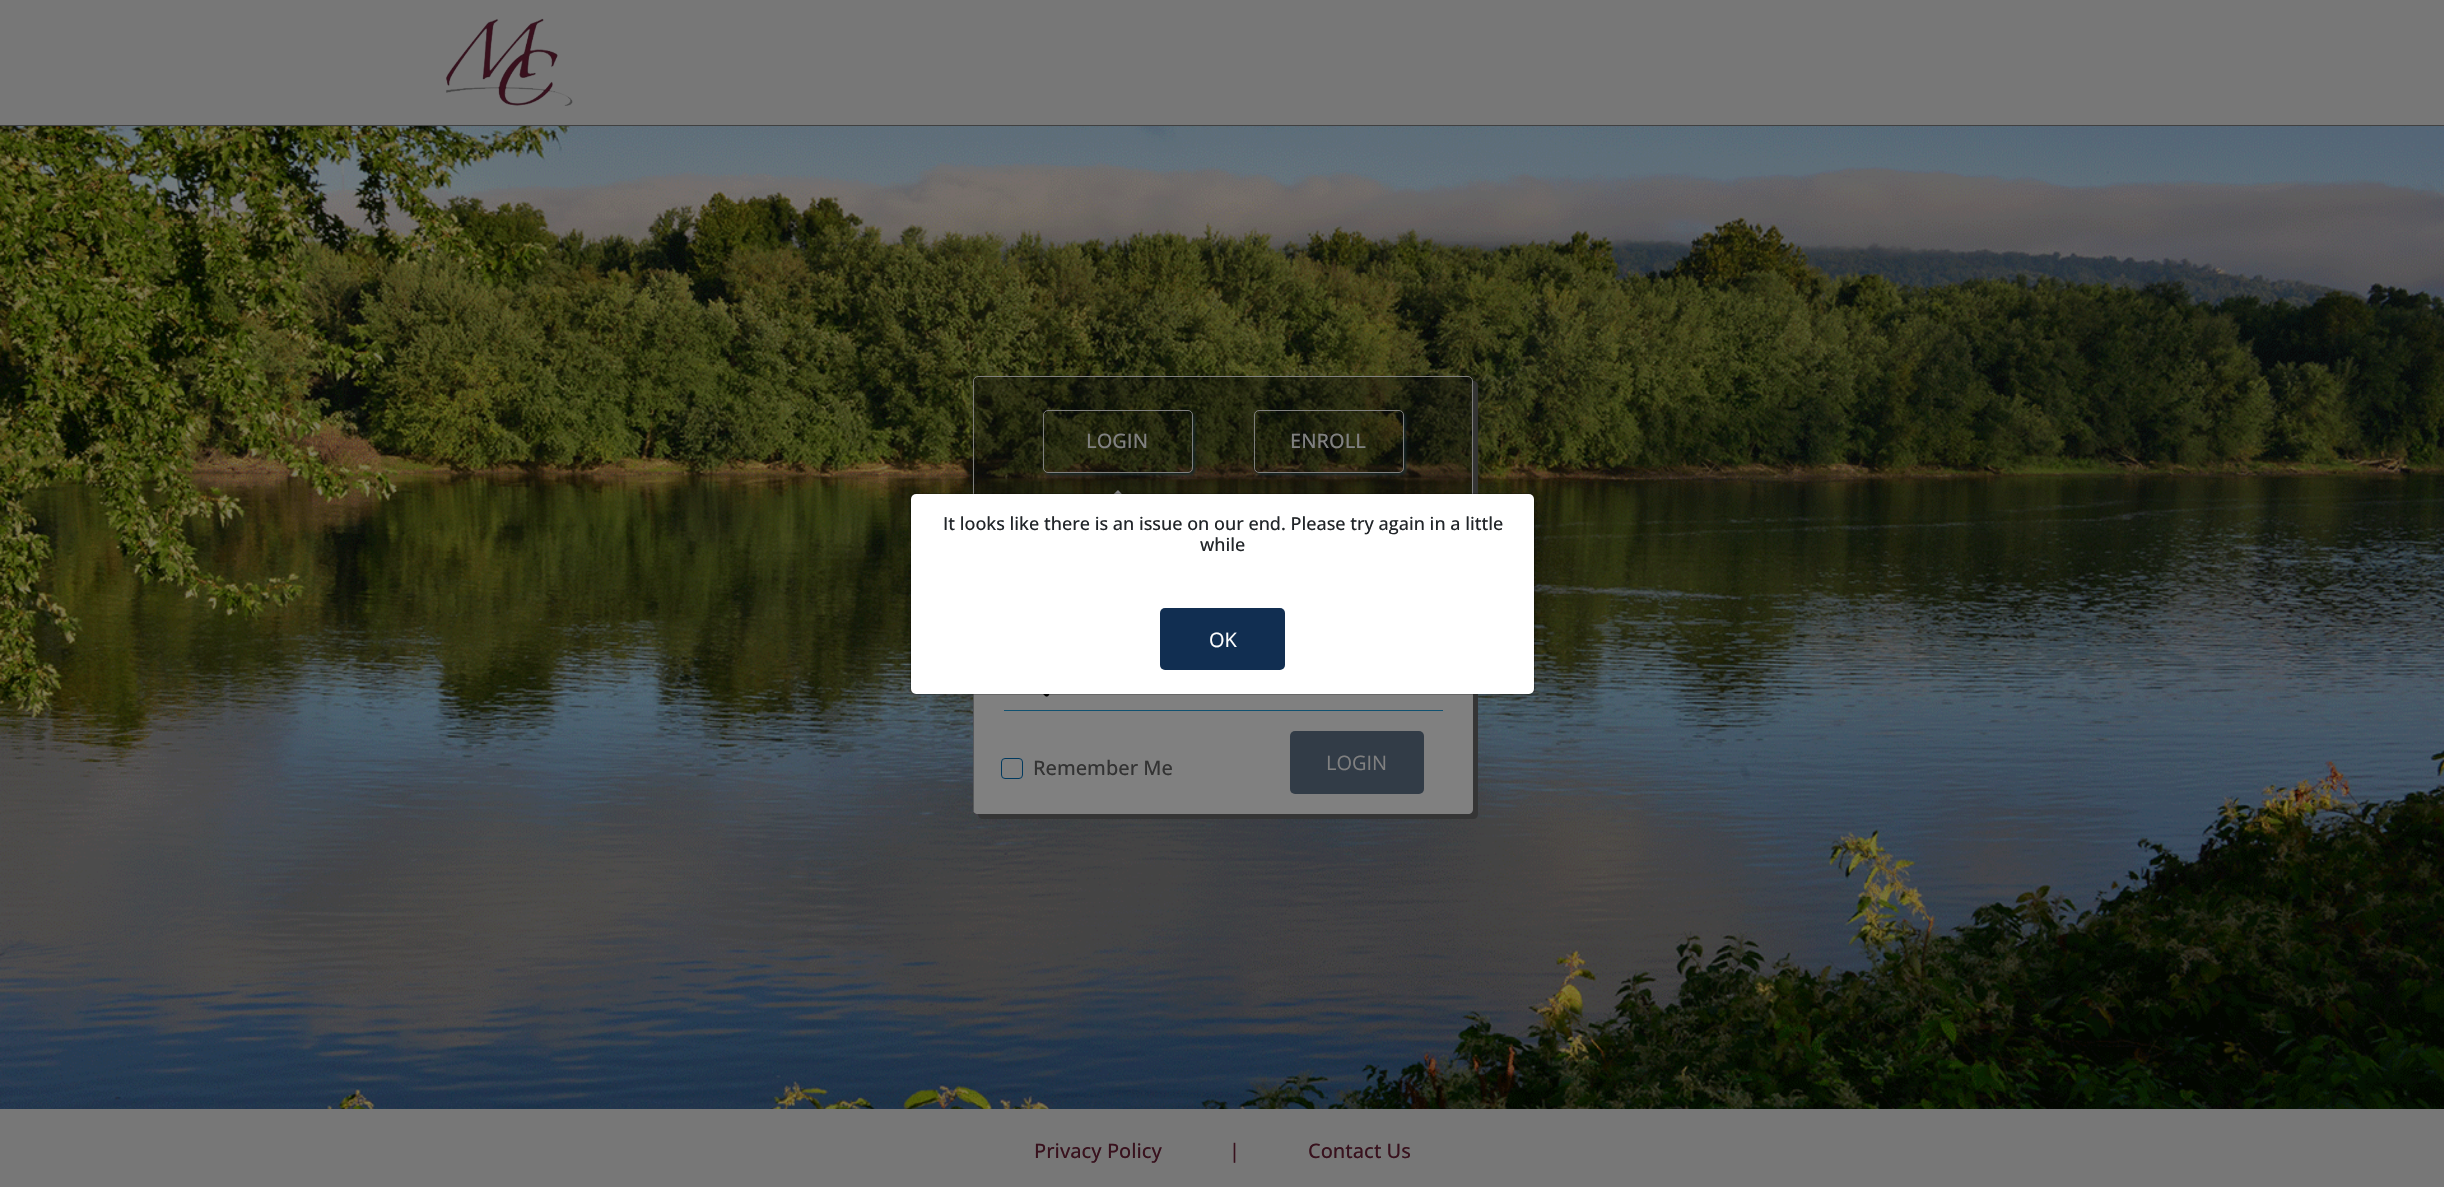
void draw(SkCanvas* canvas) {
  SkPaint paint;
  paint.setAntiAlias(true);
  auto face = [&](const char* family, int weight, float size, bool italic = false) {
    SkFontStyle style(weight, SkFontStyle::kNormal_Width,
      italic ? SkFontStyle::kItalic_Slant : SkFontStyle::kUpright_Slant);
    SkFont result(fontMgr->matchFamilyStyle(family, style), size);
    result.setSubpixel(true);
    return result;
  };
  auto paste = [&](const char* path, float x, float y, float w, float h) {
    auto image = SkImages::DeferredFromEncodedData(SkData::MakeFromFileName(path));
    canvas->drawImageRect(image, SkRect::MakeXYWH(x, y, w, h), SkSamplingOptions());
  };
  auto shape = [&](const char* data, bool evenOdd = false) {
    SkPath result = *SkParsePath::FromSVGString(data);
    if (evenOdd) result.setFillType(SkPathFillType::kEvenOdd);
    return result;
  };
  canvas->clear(0xffffffff);
  paste("img/1.png", 0, 126, 2444, 983);
  paint.setColor(0xff777777);
  canvas->drawRect(SkRect::MakeXYWH(0, 0, 2444, 125), paint);
  paint.setColor(0xff404040);
  canvas->drawRect(SkRect::MakeXYWH(0, 125, 2444, 1), paint);
  paste("img/2.png", 446, 18, 127, 88);
  paint.setColor(0xff353535);
  canvas->drawPath(shape("M978 516V521H1478V386C1478 383 1476 381 1473 381H1472V516Z"), paint);
  paint.setColor(0x660a0a0a);
  canvas->drawPath(shape("M978 376.5H1468C1470.5 376.5 1472.5 378.5 1472.5 381V515.5H973.5V381C973.5 378.5 975.5 376.5 978 376.5Z"), paint);
  paint.setStroke(true);
  paint.setStrokeWidth(1);
  paint.setColor(0xff808080);
  canvas->drawPath(shape("M978 376.5H1468C1470.5 376.5 1472.5 378.5 1472.5 381V515.5H973.5V381C973.5 378.5 975.5 376.5 978 376.5Z"), paint);
  canvas->save();
  canvas->clipPath(shape("M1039 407H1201V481H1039ZM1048 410H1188C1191 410 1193 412 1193 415V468C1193 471 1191 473 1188 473H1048C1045 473 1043 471 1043 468V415C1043 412 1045 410 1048 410Z", true), true);
  paint.setStroke(false);
  paint.setColor(0xff182828);
  paint.setMaskFilter(SkMaskFilter::MakeBlur(kNormal_SkBlurStyle, 1.5f));
  canvas->drawRoundRect(SkRect::MakeXYWH(1045, 413, 150, 62), 5, 5, paint);
  paint.setMaskFilter(nullptr);
  canvas->restore();
  paint.setStroke(true);
  paint.setColor(0xff808080);
  canvas->drawRoundRect(SkRect::MakeXYWH(1043.5f, 410.5f, 149, 62), 4.5f, 4.5f, paint);
  canvas->save();
  canvas->clipPath(shape("M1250 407H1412V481H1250ZM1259 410H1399C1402 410 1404 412 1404 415V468C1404 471 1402 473 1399 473H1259C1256 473 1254 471 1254 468V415C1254 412 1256 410 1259 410Z", true), true);
  paint.setStroke(false);
  paint.setColor(0xff182828);
  paint.setMaskFilter(SkMaskFilter::MakeBlur(kNormal_SkBlurStyle, 1.5f));
  canvas->drawRoundRect(SkRect::MakeXYWH(1256, 413, 150, 62), 5, 5, paint);
  paint.setMaskFilter(nullptr);
  canvas->restore();
  paint.setStroke(true);
  paint.setColor(0xff808080);
  canvas->drawRoundRect(SkRect::MakeXYWH(1254.5f, 410.5f, 149, 62), 4.5f, 4.5f, paint);
  paint.setStroke(false);
  canvas->drawPath(shape("M1092 515L1118 490L1142 515Z"), paint);
  paint.setColor(0xff353535);
  canvas->drawPath(shape("M978 814C978 817 980 819 983 819H1473C1476 819 1478 817 1478 814V521H1472V809C1472 812 1470 814 1468 814Z"), paint);
  paint.setColor(0xff808080);
  canvas->drawPath(shape("M973 516H1473V809C1473 812 1471 814 1468 814H978C975 814 973 812 973 809Z"), paint);
  paint.setColor(0xff57585b);
  canvas->drawRect(SkRect::MakeXYWH(973, 694, 1, 117), paint);
  paint.setColor(0xff105170);
  canvas->drawRect(SkRect::MakeXYWH(1004, 710, 439, 1), paint);
  paste("img/3.png", 1043, 694, 7, 3);
  paint.setStroke(true);
  paint.setColor(0xff00395e);
  canvas->drawRoundRect(SkRect::MakeXYWH(1001.5f, 758.5f, 21, 20), 3.5f, 3.5f, paint);
  paint.setStroke(false);
  paint.setColor(0xff323c47);
  canvas->drawRoundRect(SkRect::MakeXYWH(1290, 731, 134, 63), 5, 5, paint);
  paint.setColor(0xff777777);
  canvas->drawRect(SkRect::MakeXYWH(0, 1109, 2444, 78), paint);
  paint.setColor(0xffffffff);
  canvas->drawRoundRect(SkRect::MakeXYWH(911, 494, 623, 200), 5, 5, paint);
  paint.setStroke(true);
  paint.setColor(0x33000000);
  canvas->drawRoundRect(SkRect::MakeXYWH(910.5f, 493.5f, 624, 201), 5.5f, 5.5f, paint);
  paint.setStroke(false);
  paint.setColor(0xff112e51);
  canvas->drawRoundRect(SkRect::MakeXYWH(1160, 608, 125, 62), 5, 5, paint);
  auto f0 = face("Open Sans", 500, 20);
  paint.setColor(0xff808080);
  canvas->drawString("LOGIN", 1086, 448, f0, paint);
  canvas->drawString("ENROLL", 1290, 448, f0, paint);
  paint.setColor(0xff333333);
  canvas->drawString("Remember Me", 1033, 775, f0, paint);
  auto f1 = face("Open Sans", 400, 20);
  paint.setColor(0xff808080);
  canvas->drawString("LOGIN", 1326, 770, f1, paint);
  paint.setColor(0xff38111d);
  {
    const struct { const char* s; float x, y; } items[] = {
      {"Privacy Policy", 1034, 1158},
      {"|", 1229, 1158},
      {"Contact Us", 1308, 1158},
    };
    for (auto [s, x, y] : items) {
      canvas->drawString(s, x, y, f0, paint);
    }
  }
  auto f2 = face("Open Sans", 500, 18);
  paint.setColor(0xff212529);
  canvas->drawString("It looks like there is an issue on our end. Please try again in a little", 943, 530, f2, paint);
  canvas->drawString("while", 1200, 551, f2, paint);
  paint.setColor(0xffffffff);
  canvas->drawString("OK", 1209, 647, f1, paint);
}
